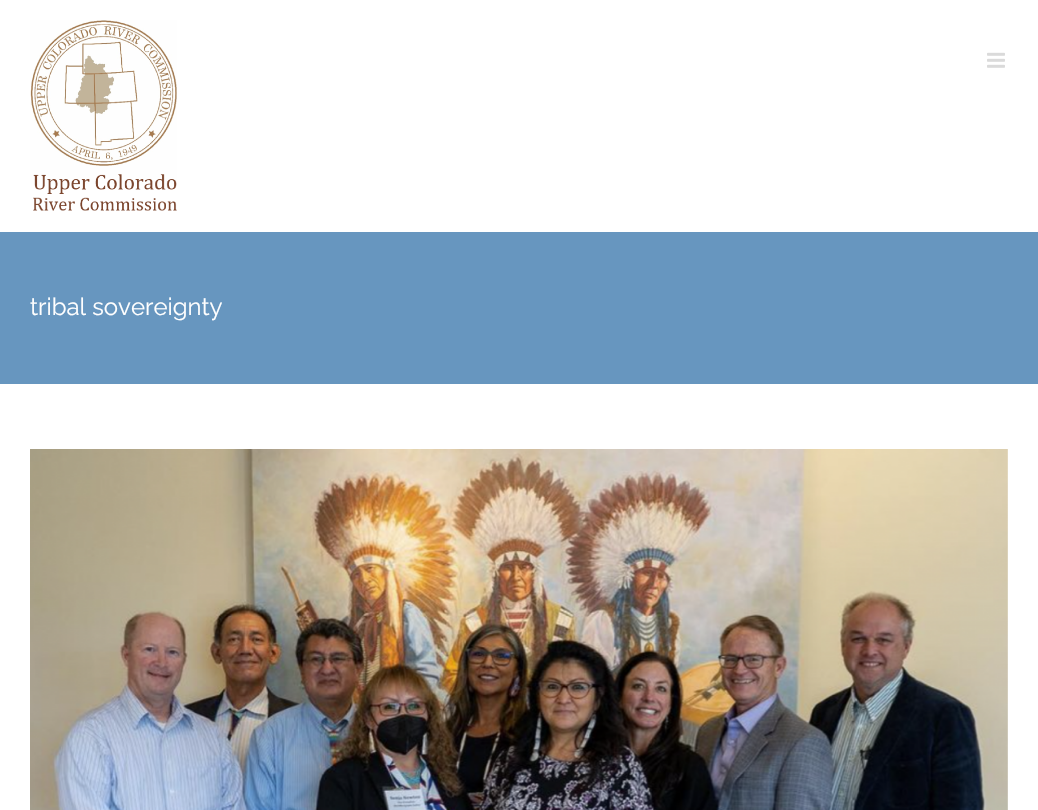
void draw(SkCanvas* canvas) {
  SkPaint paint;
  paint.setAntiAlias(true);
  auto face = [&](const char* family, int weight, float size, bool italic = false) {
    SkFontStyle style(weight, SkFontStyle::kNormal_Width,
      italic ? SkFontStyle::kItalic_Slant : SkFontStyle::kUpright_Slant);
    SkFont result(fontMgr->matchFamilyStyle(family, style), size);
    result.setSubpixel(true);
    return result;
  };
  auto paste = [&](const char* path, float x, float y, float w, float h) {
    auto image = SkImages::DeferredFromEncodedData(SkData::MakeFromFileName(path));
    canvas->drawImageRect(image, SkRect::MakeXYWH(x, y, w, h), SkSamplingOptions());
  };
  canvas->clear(0xffffffff);
  paste("img/1.png", 30, 20, 147, 191);
  paste("img/2.png", 987, 52, 18, 16);
  paint.setColor(0xff6796bf);
  canvas->drawRect(SkRect::MakeXYWH(0, 232, 1038, 152), paint);
  paste("img/3.png", 30, 449, 978, 361);
  auto f0 = face("Raleway", 400, 24);
  paint.setColor(0xffffffff);
  canvas->drawString("tribal sovereignty", 30, 315, f0, paint);
}
